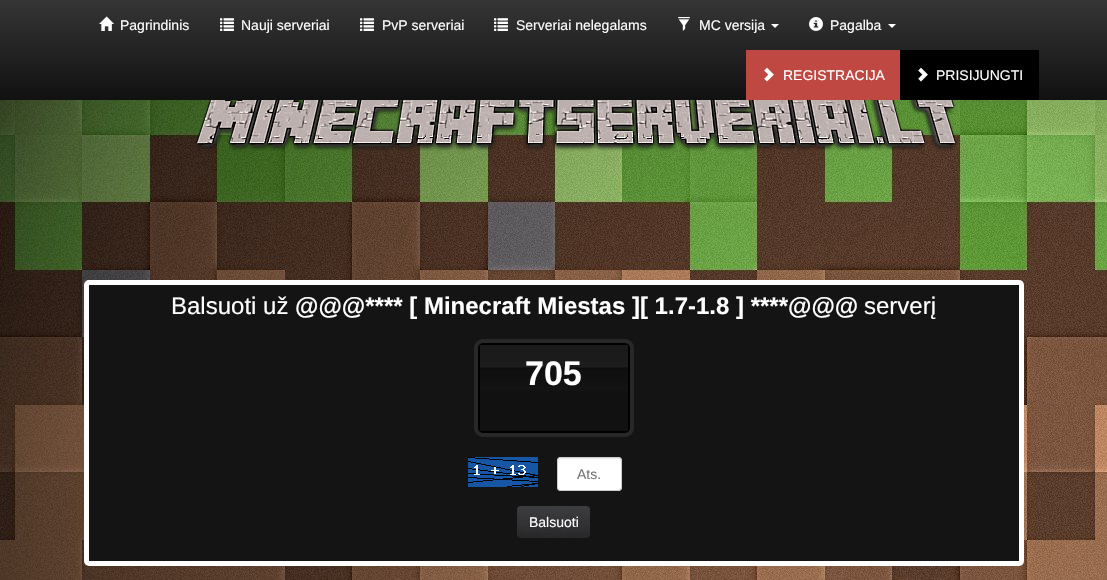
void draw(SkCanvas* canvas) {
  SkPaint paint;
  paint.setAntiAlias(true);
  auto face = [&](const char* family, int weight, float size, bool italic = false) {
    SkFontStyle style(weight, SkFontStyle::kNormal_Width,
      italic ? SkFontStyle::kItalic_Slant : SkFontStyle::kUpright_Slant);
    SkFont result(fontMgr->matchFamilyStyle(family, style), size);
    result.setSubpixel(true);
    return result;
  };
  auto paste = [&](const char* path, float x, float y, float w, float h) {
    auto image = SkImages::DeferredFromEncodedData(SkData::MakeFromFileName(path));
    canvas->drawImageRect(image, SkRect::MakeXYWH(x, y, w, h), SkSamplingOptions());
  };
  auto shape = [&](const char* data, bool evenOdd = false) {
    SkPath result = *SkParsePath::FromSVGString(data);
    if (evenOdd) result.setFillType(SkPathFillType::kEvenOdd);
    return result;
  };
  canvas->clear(0xffffffff);
  paste("img/1.png", 0, 100, 1107, 480);
  {
    const SkColor colors[] = {0xff4c4c4c, 0xff1c1c1c, 0xff666666, 0xff595959, 0xff353535, 0xff111111, 0xff2b2b2b, 0xff2c2c2c, 0xff000000, 0xff131313, 0xff000000, 0xff2b2b2b};
    const float stops[] = {0, 0, 0, 0, 0, 0.99f, 0.99f, 0.99f, 0.99f, 0.99f, 1, 1};
    const SkPoint ends[] = {{554, 0}, {554, 101}};
    paint.setShader(SkGradientShader::MakeLinear(ends, colors, stops, 12, SkTileMode::kClamp));
    paint.setAlpha(255);
  }
  canvas->drawRect(SkRect::MakeXYWH(0, 0, 1107, 100), paint);
  paste("img/2.png", 99, 16, 15, 15);
  paste("img/3.png", 220, 18, 14, 13);
  paste("img/3.png", 360, 18, 14, 13);
  paste("img/3.png", 494, 18, 14, 13);
  paste("img/4.png", 678, 17, 12, 14);
  paint.setShader(nullptr);
  paint.setColor(0xffffffff);
  canvas->drawPath(shape("M771 24H779L775 28Z"), paint);
  paste("img/5.png", 809, 17, 14, 14);
  canvas->drawPath(shape("M888 24H896L892 28Z"), paint);
  paint.setColor(0xffbf4842);
  canvas->drawRect(SkRect::MakeXYWH(746, 50, 154, 50), paint);
  paste("img/6.png", 764, 67, 10, 15);
  paint.setColor(0xff000000);
  canvas->drawRect(SkRect::MakeXYWH(900, 50, 139, 50), paint);
  paste("img/7.png", 918, 67, 10, 15);
  paste("img/8.png", 195, 100, 762, 51);
  paint.setColor(0xffffffff);
  canvas->drawRoundRect(SkRect::MakeXYWH(84, 280, 940, 286), 5, 5, paint);
  paint.setColor(0xff141414);
  canvas->drawRect(SkRect::MakeXYWH(89, 285, 930, 276), paint);
  paste("img/9.png", 474, 339, 160, 98);
  paste("img/10.png", 468, 457, 70, 30);
  paint.setColor(0xffffffff);
  canvas->drawRoundRect(SkRect::MakeXYWH(557, 457, 65, 34), 4, 4, paint);
  paint.setColor(0xffececec);
  canvas->drawPath(shape("M561 459H618C620 459 621 460 621 462C621 456 613 458 608 458H570C566 458 558 456 558 462C558 460 559 459 561 459Z"), paint);
  paint.setStroke(true);
  paint.setStrokeWidth(1);
  paint.setColor(0xffcccccc);
  canvas->drawRoundRect(SkRect::MakeXYWH(557.5f, 457.5f, 64, 33), 3.5f, 3.5f, paint);
  paste("img/11.png", 517, 506, 73, 32);
  auto f0 = face("Liberation Sans", 400, 14);
  paint.setStroke(false);
  paint.setColor(0xffffffff);
  {
    const struct { const char* s; float x, y; } items[] = {
      {"Pagrindinis", 120, 30},
      {"Nauji serveriai", 241, 30},
      {"PvP serveriai", 382, 30},
      {"Serveriai nelegalams", 516, 30},
      {"MC versija", 699, 30},
      {"Pagalba", 830, 30},
      {"REGISTRACIJA", 783, 80},
      {"PRISIJUNGTI", 936, 80},
    };
    for (auto [s, x, y] : items) {
      canvas->drawString(s, x, y, f0, paint);
    }
  }
  auto f1 = face("Liberation Sans", 400, 24);
  canvas->drawString("Balsuoti už", 171, 314, f1, paint);
  auto f2 = face("Liberation Sans", 700, 24);
  canvas->drawString("@@@**** [ Minecraft Miestas ][ 1.7-1.8 ] ****@@@", 295, 314, f2, paint);
  canvas->drawString("serverį", 864, 314, f1, paint);
  auto f3 = face("Liberation Sans", 700, 34);
  canvas->drawString("705", 525, 385, f3, paint);
  paint.setColor(0xff777777);
  canvas->drawString("Ats.", 577, 479, f0, paint);
  paint.setColor(0xffffffff);
  canvas->drawString("Balsuoti", 529, 527, f0, paint);
}
